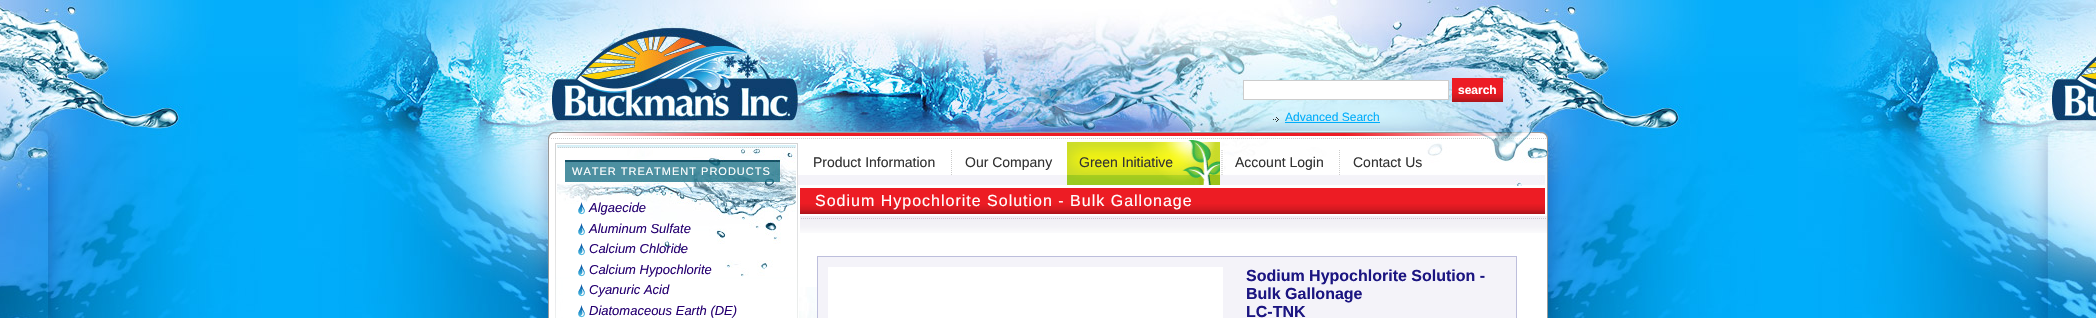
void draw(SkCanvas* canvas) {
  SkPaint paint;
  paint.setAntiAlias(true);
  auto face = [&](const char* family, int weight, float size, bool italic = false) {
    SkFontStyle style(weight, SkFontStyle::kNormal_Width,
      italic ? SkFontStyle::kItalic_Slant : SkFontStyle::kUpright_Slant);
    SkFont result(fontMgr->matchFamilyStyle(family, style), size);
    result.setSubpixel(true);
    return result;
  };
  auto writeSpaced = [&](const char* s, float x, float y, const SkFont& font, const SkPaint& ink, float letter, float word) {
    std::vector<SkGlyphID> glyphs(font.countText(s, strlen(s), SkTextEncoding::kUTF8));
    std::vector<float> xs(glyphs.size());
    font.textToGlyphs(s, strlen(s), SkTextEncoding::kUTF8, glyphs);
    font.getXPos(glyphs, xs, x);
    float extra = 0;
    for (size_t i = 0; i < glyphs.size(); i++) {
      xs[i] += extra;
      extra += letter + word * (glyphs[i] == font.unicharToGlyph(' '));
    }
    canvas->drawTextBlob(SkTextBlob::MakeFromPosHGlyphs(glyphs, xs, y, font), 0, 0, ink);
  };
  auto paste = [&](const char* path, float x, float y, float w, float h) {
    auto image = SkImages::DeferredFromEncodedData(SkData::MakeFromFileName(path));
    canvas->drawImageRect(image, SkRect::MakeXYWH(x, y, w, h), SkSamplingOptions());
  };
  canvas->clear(0xffffffff);
  paste("img/1.png", 0, 0, 2096, 318);
  paste("img/2.png", 548, 132, 1000, 7);
  paint.setColor(0xffffffff);
  canvas->drawRect(SkRect::MakeXYWH(1243.5f, 80.5f, 205, 19), paint);
  paint.setStroke(true);
  paint.setStrokeWidth(1);
  paint.setColor(0xffcccccc);
  canvas->drawRect(SkRect::MakeXYWH(1243.5f, 80.5f, 205, 19), paint);
  paint.setStroke(false);
  paint.setColor(0xffed1c24);
  canvas->drawRect(SkRect::MakeXYWH(1452, 78, 51, 14), paint);
  paste("img/3.png", 1452, 92, 51, 10);
  paste("img/4.png", 1273, 117, 6, 5);
  paint.setColor(0xff00adfa);
  canvas->drawRect(SkRect::MakeXYWH(1285, 122, 95, 1), paint);
  paint.setColor(0xffffffff);
  canvas->drawRect(SkRect::MakeXYWH(549, 139, 998, 179), paint);
  paste("img/5.png", 799, 287, 18, 31);
  paint.setColor(0xff999999);
  canvas->drawRect(SkRect::MakeXYWH(1547, 139, 1, 179), paint);
  canvas->drawRect(SkRect::MakeXYWH(548, 139, 1, 179), paint);
  paste("img/6.png", 555, 143, 243, 175);
  paste("img/7.png", 557, 148, 239, 129);
  paste("img/8.png", 578, 202, 7, 13);
  paste("img/9.png", 578, 223, 7, 13);
  paste("img/9.png", 578, 243, 7, 13);
  paste("img/9.png", 578, 264, 7, 13);
  paste("img/9.png", 578, 284, 7, 13);
  paste("img/9.png", 578, 305, 7, 13);
  paint.setColor(0xfff4f3f9);
  canvas->drawRect(SkRect::MakeXYWH(798, 175, 269, 10), paint);
  paste("img/10.png", 1202, 139, 345, 47);
  paste("img/11.png", 951, 150, 1, 25);
  paste("img/12.png", 1067, 140, 153, 45);
  paste("img/13.png", 1220, 147, 4, 28);
  paste("img/11.png", 1339, 150, 1, 25);
  paint.setColor(0xffed1c24);
  canvas->drawRect(SkRect::MakeXYWH(800, 188, 745, 16), paint);
  paste("img/14.png", 800, 204, 745, 10);
  paste("img/15.png", 800, 216, 747, 17);
  paint.setColor(0xfff4f3f9);
  canvas->drawRect(SkRect::MakeXYWH(817.5f, 256.5f, 699, 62), paint);
  paint.setStroke(true);
  paint.setColor(0xffbdbedc);
  canvas->drawRect(SkRect::MakeXYWH(817.5f, 256.5f, 699, 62), paint);
  paint.setStroke(false);
  paint.setColor(0xffffffff);
  canvas->drawRect(SkRect::MakeXYWH(828, 267, 395, 51), paint);
  auto f0 = face("Liberation Sans", 700, 12);
  canvas->drawString("search", 1458, 94, f0, paint);
  auto f1 = face("Liberation Sans", 400, 12);
  paint.setColor(0xff00adfa);
  canvas->drawString("Advanced Search", 1285, 121, f1, paint);
  auto f2 = face("Liberation Sans", 400, 11);
  paint.setColor(0xffffffff);
  writeSpaced("WATER TREATMENT PRODUCTS", 572, 175, f2, paint, 1, 0);
  auto f3 = face("Liberation Sans", 400, 13, true);
  paint.setColor(0xff260071);
  {
    const struct { const char* s; float x, y; } items[] = {
      {"Algaecide", 589, 212},
      {"Aluminum Sulfate", 589, 233},
      {"Calcium Chloride", 589, 253},
      {"Calcium Hypochlorite", 589, 274},
      {"Cyanuric Acid", 589, 294},
      {"Diatomaceous Earth (DE)", 589, 315},
    };
    for (auto [s, x, y] : items) {
      canvas->drawString(s, x, y, f3, paint);
    }
  }
  auto f4 = face("Liberation Sans", 400, 14);
  paint.setColor(0xff333333);
  {
    const struct { const char* s; float x, y; } items[] = {
      {"Product Information", 813, 167},
      {"Our Company", 965, 167},
      {"Green Initiative", 1079, 167},
      {"Account Login", 1235, 167},
      {"Contact Us", 1353, 167},
    };
    for (auto [s, x, y] : items) {
      canvas->drawString(s, x, y, f4, paint);
    }
  }
  auto f5 = face("Liberation Sans", 400, 16);
  paint.setColor(0xffffffff);
  writeSpaced("Sodium Hypochlorite Solution - Bulk Gallonage", 815, 206, f5, paint, 1, 0);
  auto f6 = face("Liberation Sans", 700, 16);
  paint.setColor(0xff1b1581);
  {
    const struct { const char* s; float x, y; } items[] = {
      {"Sodium Hypochlorite Solution -", 1246, 281},
      {"Bulk Gallonage", 1246, 299},
      {"LC-TNK", 1246, 317},
    };
    for (auto [s, x, y] : items) {
      canvas->drawString(s, x, y, f6, paint);
    }
  }
}
